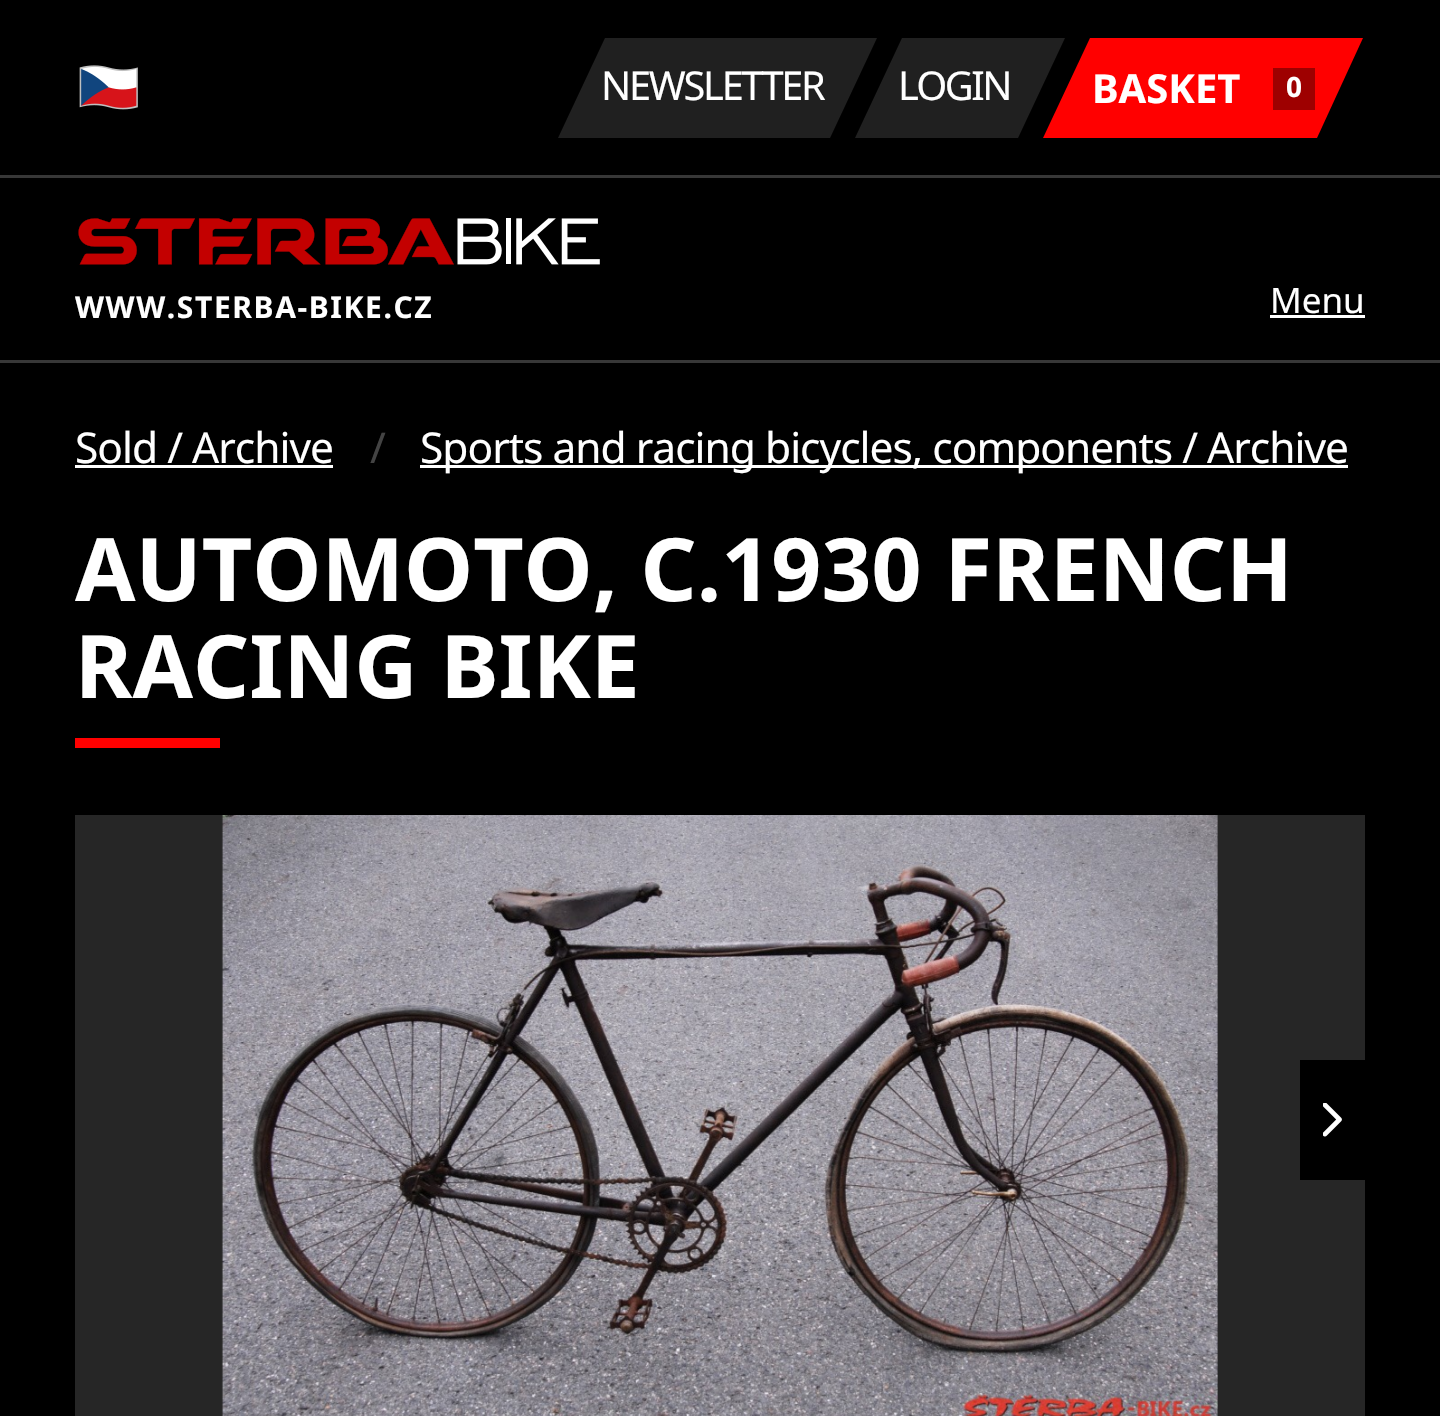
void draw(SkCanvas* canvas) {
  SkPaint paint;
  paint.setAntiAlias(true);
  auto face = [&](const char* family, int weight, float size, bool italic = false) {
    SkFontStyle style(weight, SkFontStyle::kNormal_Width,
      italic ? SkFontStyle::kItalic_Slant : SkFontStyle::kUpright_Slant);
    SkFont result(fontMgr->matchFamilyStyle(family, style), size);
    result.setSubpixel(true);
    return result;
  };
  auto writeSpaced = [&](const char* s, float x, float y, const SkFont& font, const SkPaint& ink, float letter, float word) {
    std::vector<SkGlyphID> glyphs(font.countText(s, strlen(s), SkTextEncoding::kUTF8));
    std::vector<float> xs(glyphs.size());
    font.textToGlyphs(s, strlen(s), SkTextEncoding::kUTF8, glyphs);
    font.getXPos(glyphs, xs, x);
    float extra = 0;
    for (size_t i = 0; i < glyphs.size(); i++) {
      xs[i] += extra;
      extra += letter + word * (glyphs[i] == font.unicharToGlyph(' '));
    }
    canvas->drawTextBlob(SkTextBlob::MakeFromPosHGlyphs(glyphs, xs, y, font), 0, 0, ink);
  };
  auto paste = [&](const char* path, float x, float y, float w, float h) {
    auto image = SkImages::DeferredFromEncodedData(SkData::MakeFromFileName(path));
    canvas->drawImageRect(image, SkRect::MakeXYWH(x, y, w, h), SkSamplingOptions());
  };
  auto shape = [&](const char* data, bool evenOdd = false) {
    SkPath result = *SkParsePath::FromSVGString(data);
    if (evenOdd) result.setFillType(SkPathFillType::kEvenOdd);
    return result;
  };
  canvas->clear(0xff000000);
  paint.setColor(0xff373737);
  canvas->drawRect(SkRect::MakeXYWH(0, 360, 1440, 3), paint);
  paste("img/1.png", 79, 65, 59, 45);
  paint.setColor(0xff202020);
  canvas->drawPath(shape("M605 38H877L830 138H558Z"), paint);
  canvas->drawPath(shape("M902 38H1065L1018 138H855Z"), paint);
  paint.setColor(0xffff0000);
  canvas->drawPath(shape("M1090 38H1363L1317 138H1043Z"), paint);
  paint.setColor(0xff9e0000);
  canvas->drawRect(SkRect::MakeXYWH(1273, 68, 42, 42), paint);
  paint.setColor(0xff373737);
  canvas->drawRect(SkRect::MakeXYWH(0, 175, 1440, 3), paint);
  paste("img/2.png", 78, 218, 522, 47);
  {
    const struct { float x, y, w, h; SkColor color; } items[] = {
      {1270, 315, 95, 3, 0xffffffff},
      {75, 465, 258, 3, 0xffffffff},
      {420, 465, 928, 3, 0xffffffff},
      {75, 738, 145, 10, 0xffff0000},
      {75, 815, 1290, 601, 0xff262626},
    };
    for (auto [x, y, w, h, color] : items) {
      paint.setColor(color);
      canvas->drawRect(SkRect::MakeXYWH(x, y, w, h), paint);
    }
  }
  paste("img/3.png", 221, 815, 997, 601);
  paint.setColor(0xff000000);
  canvas->drawRect(SkRect::MakeXYWH(1300, 1060, 65, 120), paint);
  paste("img/4.png", 1323, 1103, 19, 34);
  auto f0 = face("Noto Sans", 400, 39.75f);
  paint.setColor(0xffffffff);
  writeSpaced("NEWSLETTER", 601, 100, f0, paint, -2.25f, 0);
  writeSpaced("LOGIN", 898, 100, f0, paint, -2.5f, 0);
  auto f1 = face("Noto Sans", 700, 40);
  canvas->drawString("BASKET", 1092, 103, f1, paint);
  auto f2 = face("Noto Sans", 700, 28);
  canvas->drawString("0", 1286, 97, f2, paint);
  auto f3 = face("Noto Sans", 700, 30);
  writeSpaced("WWW.STERBA-BIKE.CZ", 75, 318, f3, paint, 1.6f, 0);
  auto f4 = face("Noto Sans", 400, 35);
  canvas->drawString("Menu", 1270, 313, f4, paint);
  auto f5 = face("Noto Sans", 400, 42.5f);
  writeSpaced("Sold / Archive", 75, 463, f5, paint, -1, 0);
  paint.setColor(0xff434343);
  writeSpaced("/", 370, 463, f5, paint, -1, 0);
  paint.setColor(0xffffffff);
  writeSpaced("Sports and racing bicycles, components / Archive", 420, 463, f5, paint, -1, 0);
  auto f6 = face("Noto Sans", 700, 87.5f);
  canvas->drawString("AUTOMOTO, C.1930 FRENCH", 75, 601, f6, paint);
  canvas->drawString("RACING BIKE", 75, 698, f6, paint);
}
